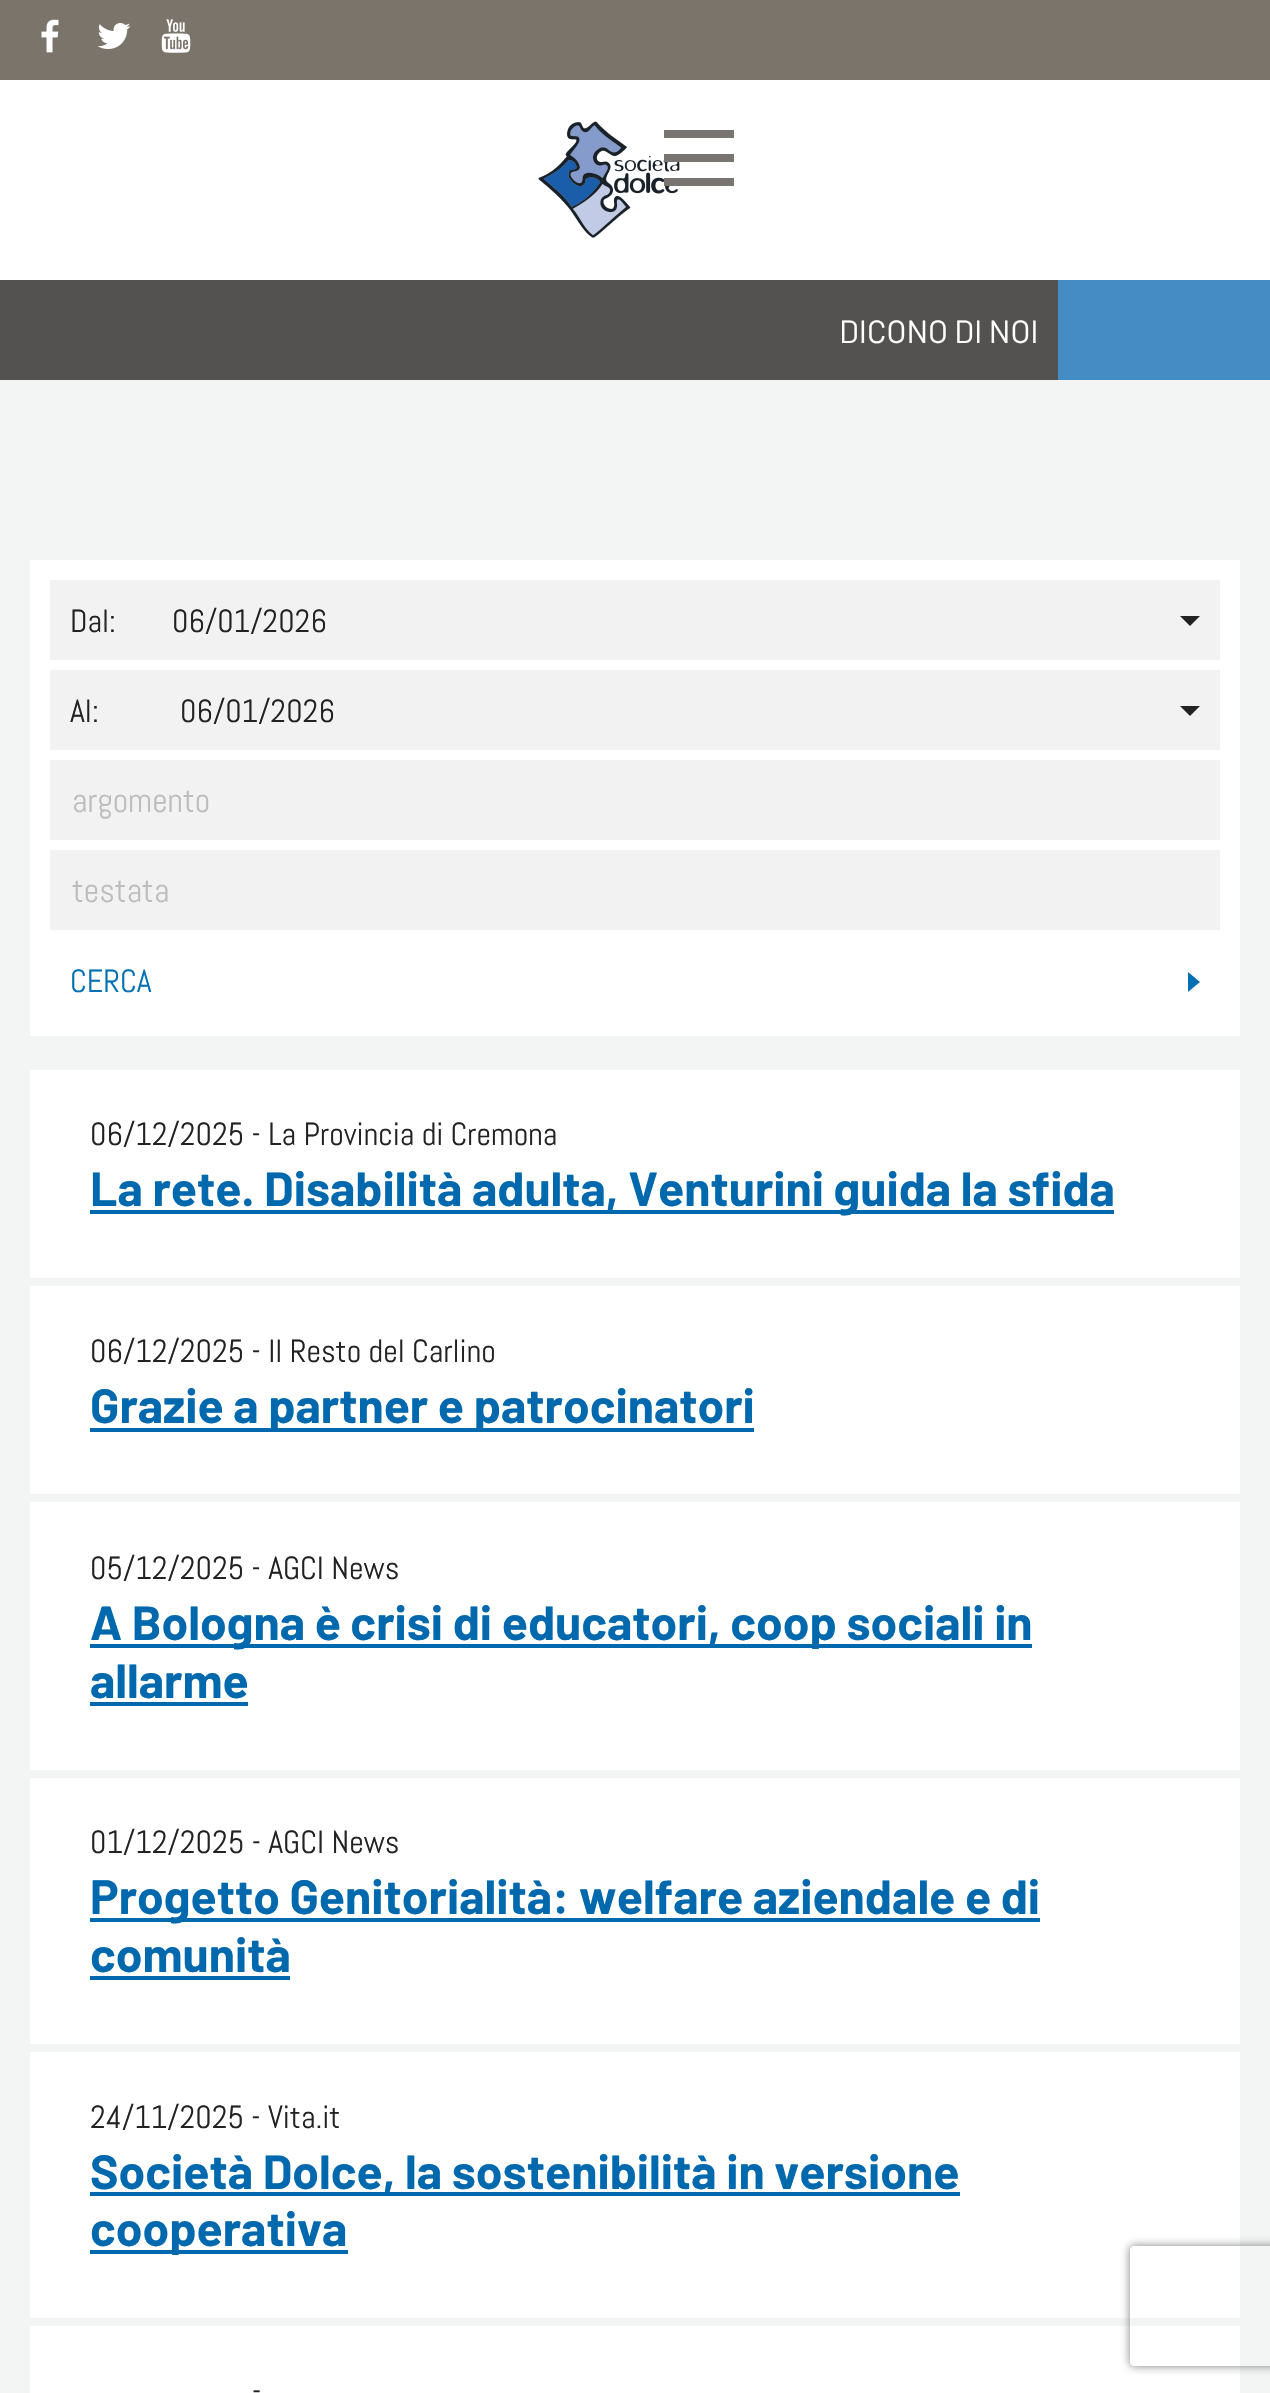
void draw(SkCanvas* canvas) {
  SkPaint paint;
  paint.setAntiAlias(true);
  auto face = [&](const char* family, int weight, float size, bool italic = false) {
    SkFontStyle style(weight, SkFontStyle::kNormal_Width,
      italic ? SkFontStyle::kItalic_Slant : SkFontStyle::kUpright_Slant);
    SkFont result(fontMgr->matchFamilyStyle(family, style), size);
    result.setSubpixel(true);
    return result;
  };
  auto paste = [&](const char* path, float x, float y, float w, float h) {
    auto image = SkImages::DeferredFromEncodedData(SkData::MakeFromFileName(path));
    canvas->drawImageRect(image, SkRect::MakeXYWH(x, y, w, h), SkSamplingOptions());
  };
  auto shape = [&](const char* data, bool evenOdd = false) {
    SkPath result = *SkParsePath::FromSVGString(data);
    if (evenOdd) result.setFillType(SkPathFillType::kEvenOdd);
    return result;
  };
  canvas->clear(0xfff3f5f5);
  paint.setColor(0xff7b746b);
  canvas->drawRect(SkRect::MakeXYWH(0, 0, 1270, 80), paint);
  paste("img/1.png", 41, 19, 18, 34);
  paste("img/2.png", 97, 23, 34, 26);
  paste("img/3.png", 161, 19, 30, 34);
  paint.setColor(0xffffffff);
  canvas->drawRect(SkRect::MakeXYWH(0, 80, 1270, 200), paint);
  paste("img/4.png", 538, 121, 142, 117);
  {
    const struct { float x, y, w, h; SkColor color; } items[] = {
      {664, 130, 70, 8, 0xff797672},
      {664, 154, 70, 8, 0xff797672},
      {664, 178, 70, 8, 0xff797672},
      {0, 280, 1058, 100, 0xff535250},
      {1058, 280, 212, 100, 0xff458bc4},
      {30, 560, 1210, 476, 0xffffffff},
      {50, 580, 1170, 80, 0xfff2f2f2},
    };
    for (auto [x, y, w, h, color] : items) {
      paint.setColor(color);
      canvas->drawRect(SkRect::MakeXYWH(x, y, w, h), paint);
    }
  }
  paint.setColor(0xff222222);
  canvas->drawPath(shape("M1180 616H1200L1190 626Z"), paint);
  paint.setColor(0xfff2f2f2);
  canvas->drawRect(SkRect::MakeXYWH(50, 670, 1170, 80), paint);
  paint.setColor(0xff222222);
  canvas->drawPath(shape("M1180 706H1200L1190 716Z"), paint);
  paint.setColor(0xfff2f2f2);
  canvas->drawRect(SkRect::MakeXYWH(50, 760, 1170, 80), paint);
  canvas->drawRect(SkRect::MakeXYWH(50, 850, 1170, 80), paint);
  paint.setColor(0xff0070b3);
  canvas->drawPath(shape("M1188 992V972L1200 982Z"), paint);
  {
    const struct { float x, y, w, h; SkColor color; } items[] = {
      {30, 1070, 1210, 208, 0xffffffff},
      {90, 1210, 1024, 4, 0xff0068ad},
      {30, 1286, 1210, 208, 0xffffffff},
      {90, 1428, 664, 4, 0xff0068ad},
      {30, 1502, 1210, 268, 0xffffffff},
      {90, 1644, 942, 4, 0xff0068ad},
      {90, 1702, 158, 4, 0xff0068ad},
      {30, 1778, 1210, 266, 0xffffffff},
      {90, 1918, 950, 4, 0xff0068ad},
      {90, 1976, 200, 4, 0xff0068ad},
      {30, 2052, 1210, 266, 0xffffffff},
      {90, 2192, 870, 4, 0xff0068ad},
      {90, 2250, 258, 4, 0xff0068ad},
      {30, 2326, 1210, 67, 0xffffffff},
    };
    for (auto [x, y, w, h, color] : items) {
      paint.setColor(color);
      canvas->drawRect(SkRect::MakeXYWH(x, y, w, h), paint);
    }
  }
  canvas->save();
  canvas->clipPath(shape("M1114 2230H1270V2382H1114ZM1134 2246H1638C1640 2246 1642 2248 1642 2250V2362C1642 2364 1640 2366 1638 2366H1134C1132 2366 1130 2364 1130 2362V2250C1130 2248 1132 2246 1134 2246Z", true), true);
  paint.setColor(0xff808080);
  paint.setMaskFilter(SkMaskFilter::MakeBlur(kNormal_SkBlurStyle, 5));
  canvas->drawRoundRect(SkRect::MakeXYWH(1130, 2246, 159, 120), 4, 4, paint);
  paint.setMaskFilter(nullptr);
  canvas->restore();
  auto f0 = face("Barlow", 400, 32);
  paint.setColor(0xffffffff);
  canvas->drawString("DICONO DI NOI", 839, 343, f0, paint);
  auto f1 = face("Abel", 400, 32);
  paint.setColor(0xff222222);
  {
    const struct { const char* s; float x, y; } items[] = {
      {"Dal:", 70, 632},
      {"06/01/2026", 172, 632},
      {"Al:", 70, 722},
      {"06/01/2026", 180, 722},
    };
    for (auto [s, x, y] : items) {
      canvas->drawString(s, x, y, f1, paint);
    }
  }
  auto f2 = face("Abel", 400, 34);
  paint.setColor(0xffbebdbd);
  canvas->drawString("argomento", 72, 812, f2, paint);
  canvas->drawString("testata", 72, 902, f2, paint);
  paint.setColor(0xff0070b3);
  canvas->drawString("CERCA", 70, 992, f1, paint);
  paint.setColor(0xff222222);
  canvas->drawString("06/12/2025 - La Provincia di Cremona", 90, 1145, f1, paint);
  auto f3 = face("Barlow", 700, 48);
  paint.setColor(0xff0068ad);
  canvas->drawString("La rete. Disabilità adulta, Venturini guida la sfida", 90, 1206, f3, paint);
  paint.setColor(0xff222222);
  canvas->drawString("06/12/2025 - Il Resto del Carlino", 90, 1362, f1, paint);
  paint.setColor(0xff0068ad);
  canvas->drawString("Grazie a partner e patrocinatori", 90, 1423, f3, paint);
  paint.setColor(0xff222222);
  canvas->drawString("05/12/2025 - AGCI News", 90, 1579, f1, paint);
  paint.setColor(0xff0068ad);
  canvas->drawString("A Bologna è crisi di educatori, coop sociali in", 90, 1640, f3, paint);
  canvas->drawString("allarme", 90, 1698, f3, paint);
  paint.setColor(0xff222222);
  canvas->drawString("01/12/2025 - AGCI News", 90, 1853, f1, paint);
  paint.setColor(0xff0068ad);
  canvas->drawString("Progetto Genitorialità: welfare aziendale e di", 90, 1914, f3, paint);
  canvas->drawString("comunità", 90, 1972, f3, paint);
  paint.setColor(0xff222222);
  canvas->drawString("24/11/2025 - Vita.it", 90, 2128, f1, paint);
  paint.setColor(0xff0068ad);
  canvas->drawString("Società Dolce, la sostenibilità in versione", 90, 2189, f3, paint);
  canvas->drawString("cooperativa", 90, 2246, f3, paint);
  paint.setColor(0xff222222);
  canvas->drawString("-", 252, 2402, f1, paint);
}
